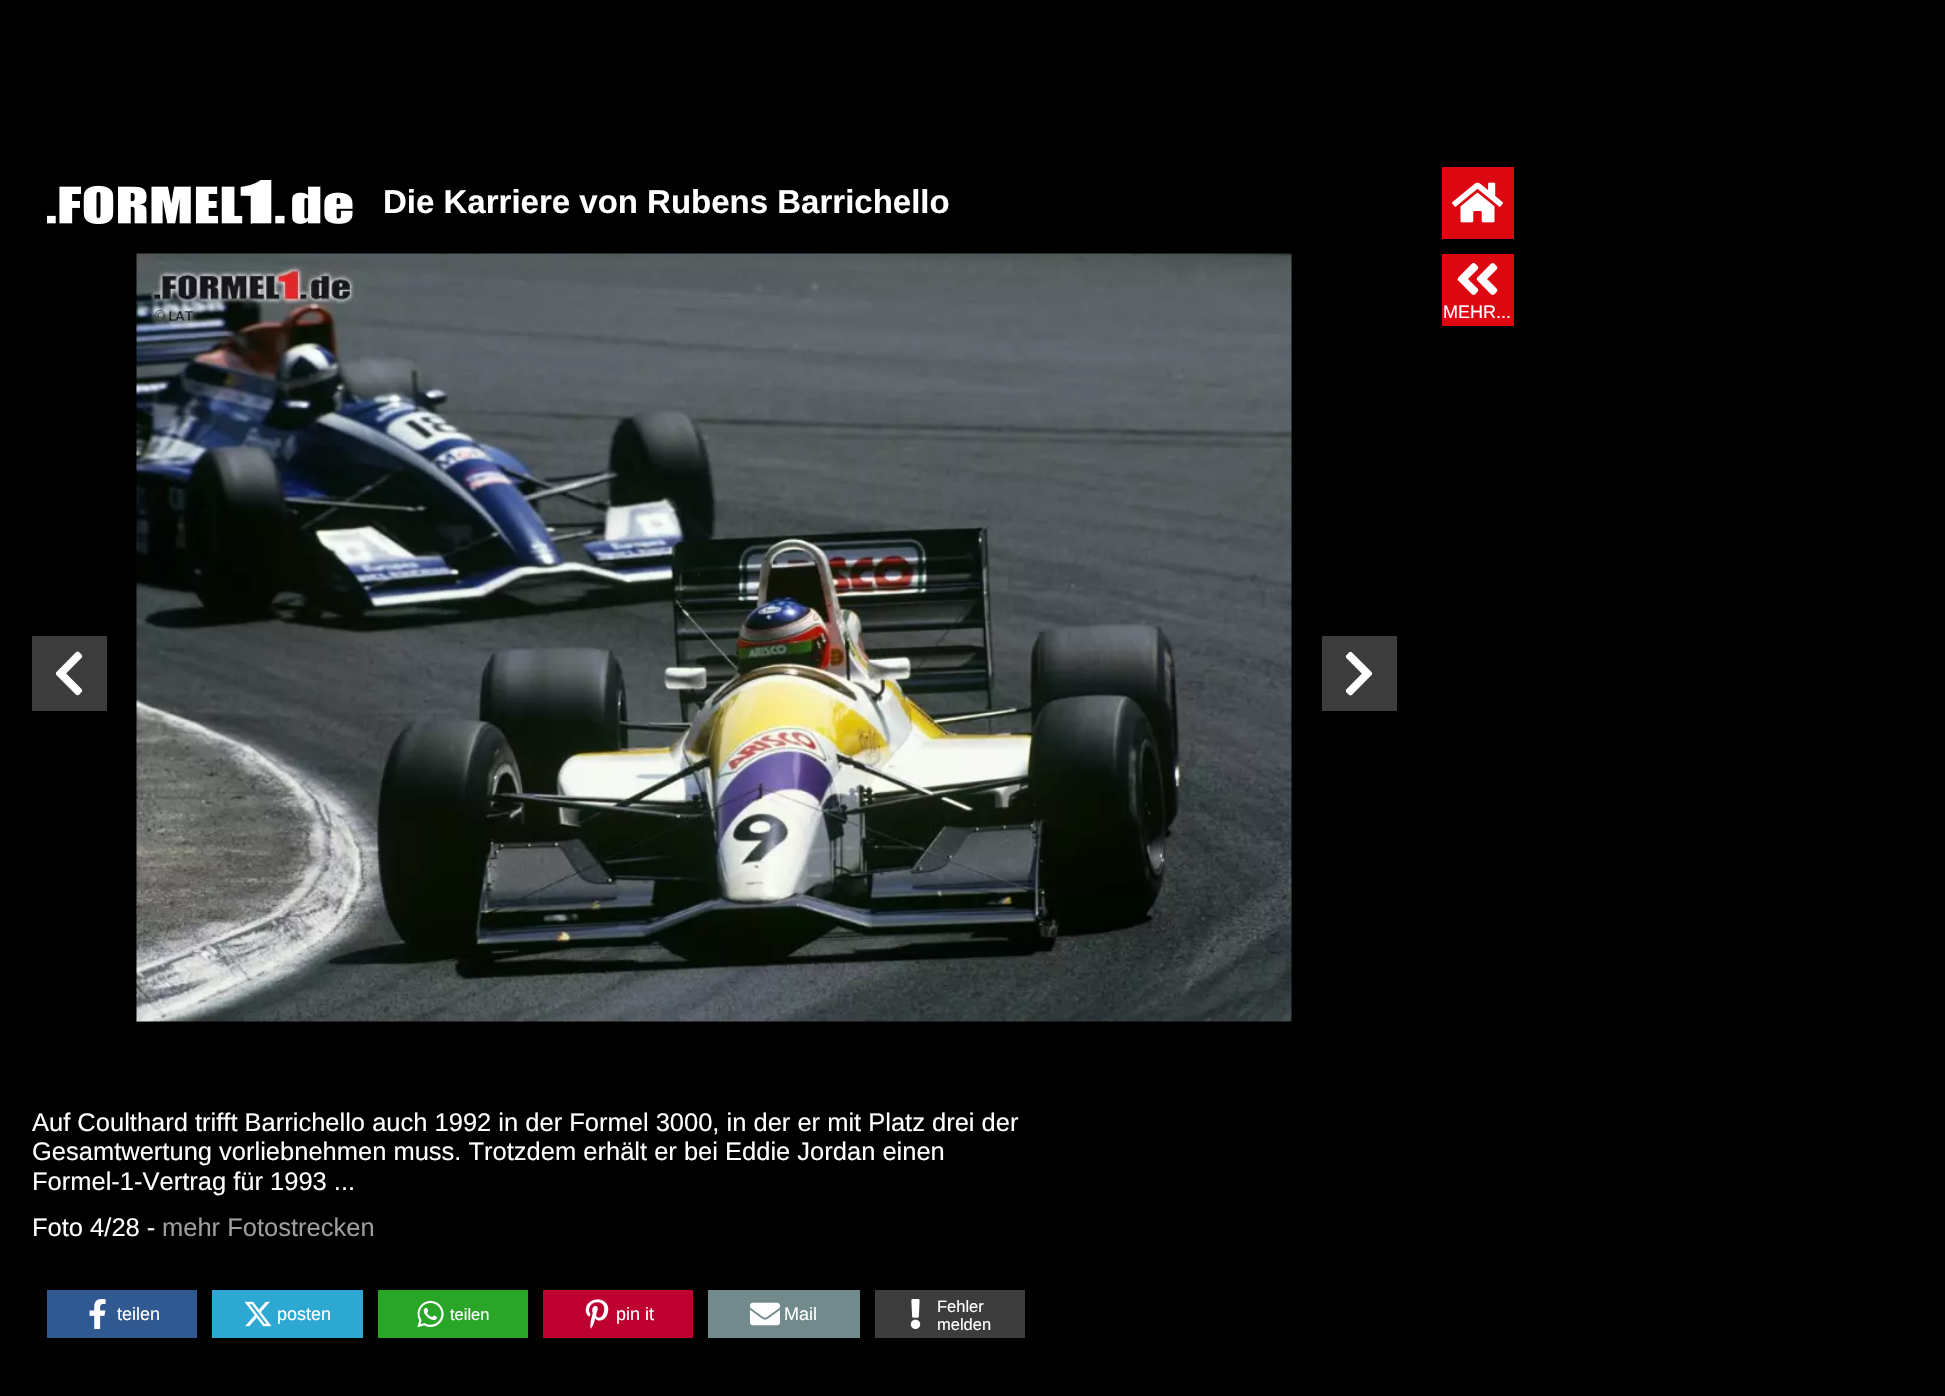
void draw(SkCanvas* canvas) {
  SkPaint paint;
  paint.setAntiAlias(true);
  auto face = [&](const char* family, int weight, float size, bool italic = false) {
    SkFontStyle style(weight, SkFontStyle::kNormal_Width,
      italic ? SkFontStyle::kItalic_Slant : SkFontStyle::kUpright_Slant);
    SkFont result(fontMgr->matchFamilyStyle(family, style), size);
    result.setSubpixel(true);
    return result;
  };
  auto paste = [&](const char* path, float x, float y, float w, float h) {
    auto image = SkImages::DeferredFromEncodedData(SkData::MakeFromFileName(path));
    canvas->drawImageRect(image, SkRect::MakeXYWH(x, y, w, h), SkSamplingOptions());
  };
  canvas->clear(0xff000000);
  paste("img/1.png", 47, 180, 306, 45);
  paint.setColor(0xffdc0711);
  canvas->drawRect(SkRect::MakeXYWH(1442, 167, 72, 72), paint);
  paste("img/2.png", 1452, 182, 51, 41);
  canvas->drawRect(SkRect::MakeXYWH(1442, 254, 72, 72), paint);
  paste("img/3.png", 1457, 263, 41, 32);
  paste("img/4.png", 136, 253, 1156, 769);
  paint.setColor(0xff3c3c3c);
  canvas->drawRect(SkRect::MakeXYWH(32, 636, 75, 75), paint);
  paste("img/5.png", 55, 651, 28, 45);
  canvas->drawRect(SkRect::MakeXYWH(1322, 636, 75, 75), paint);
  paste("img/6.png", 1345, 651, 28, 45);
  paint.setColor(0xff305891);
  canvas->drawRect(SkRect::MakeXYWH(47, 1290, 150, 48), paint);
  paste("img/7.png", 89, 1299, 17, 30);
  paint.setColor(0xff2ca8d2);
  canvas->drawRect(SkRect::MakeXYWH(212, 1290, 151, 48), paint);
  paste("img/8.png", 244, 1301, 28, 26);
  paint.setColor(0xff29a628);
  canvas->drawRect(SkRect::MakeXYWH(378, 1290, 150, 48), paint);
  paste("img/9.png", 417, 1300, 27, 28);
  paint.setColor(0xffbd0030);
  canvas->drawRect(SkRect::MakeXYWH(543, 1290, 150, 48), paint);
  paste("img/10.png", 585, 1299, 24, 30);
  paint.setColor(0xff738a8d);
  canvas->drawRect(SkRect::MakeXYWH(708, 1290, 152, 48), paint);
  paste("img/11.png", 750, 1302, 30, 24);
  paint.setColor(0xff3c3c3c);
  canvas->drawRect(SkRect::MakeXYWH(875, 1290, 150, 48), paint);
  paste("img/12.png", 910, 1299, 11, 30);
  auto f0 = face("Liberation Sans", 700, 33);
  paint.setColor(0xffffffff);
  canvas->drawString("Die Karriere von Rubens Barrichello", 383, 213, f0, paint);
  auto f1 = face("Liberation Sans", 400, 18);
  canvas->drawString("MEHR...", 1443, 318, f1, paint);
  auto f2 = face("Liberation Sans", 400, 25.5f);
  {
    const struct { const char* s; float x, y; } items[] = {
      {"Auf Coulthard trifft Barrichello auch 1992 in der Formel 3000, in der er mit Platz drei der", 32, 1131},
      {"Gesamtwertung vorliebnehmen muss. Trotzdem erhält er bei Eddie Jordan einen", 32, 1160},
      {"Formel-1-Vertrag für 1993 ...", 32, 1190},
      {"Foto 4/28 -", 32, 1236},
    };
    for (auto [s, x, y] : items) {
      canvas->drawString(s, x, y, f2, paint);
    }
  }
  paint.setColor(0xff9e9e9e);
  canvas->drawString("mehr Fotostrecken", 162, 1236, f2, paint);
  paint.setColor(0xffffffff);
  canvas->drawString("teilen", 117, 1320, f1, paint);
  canvas->drawString("posten", 277, 1320, f1, paint);
  auto f3 = face("Liberation Sans", 400, 16.5f);
  canvas->drawString("teilen", 450, 1320, f3, paint);
  canvas->drawString("pin it", 616, 1320, f1, paint);
  canvas->drawString("Mail", 784, 1320, f1, paint);
  canvas->drawString("Fehler", 937, 1312, f3, paint);
  canvas->drawString("melden", 937, 1330, f3, paint);
}
